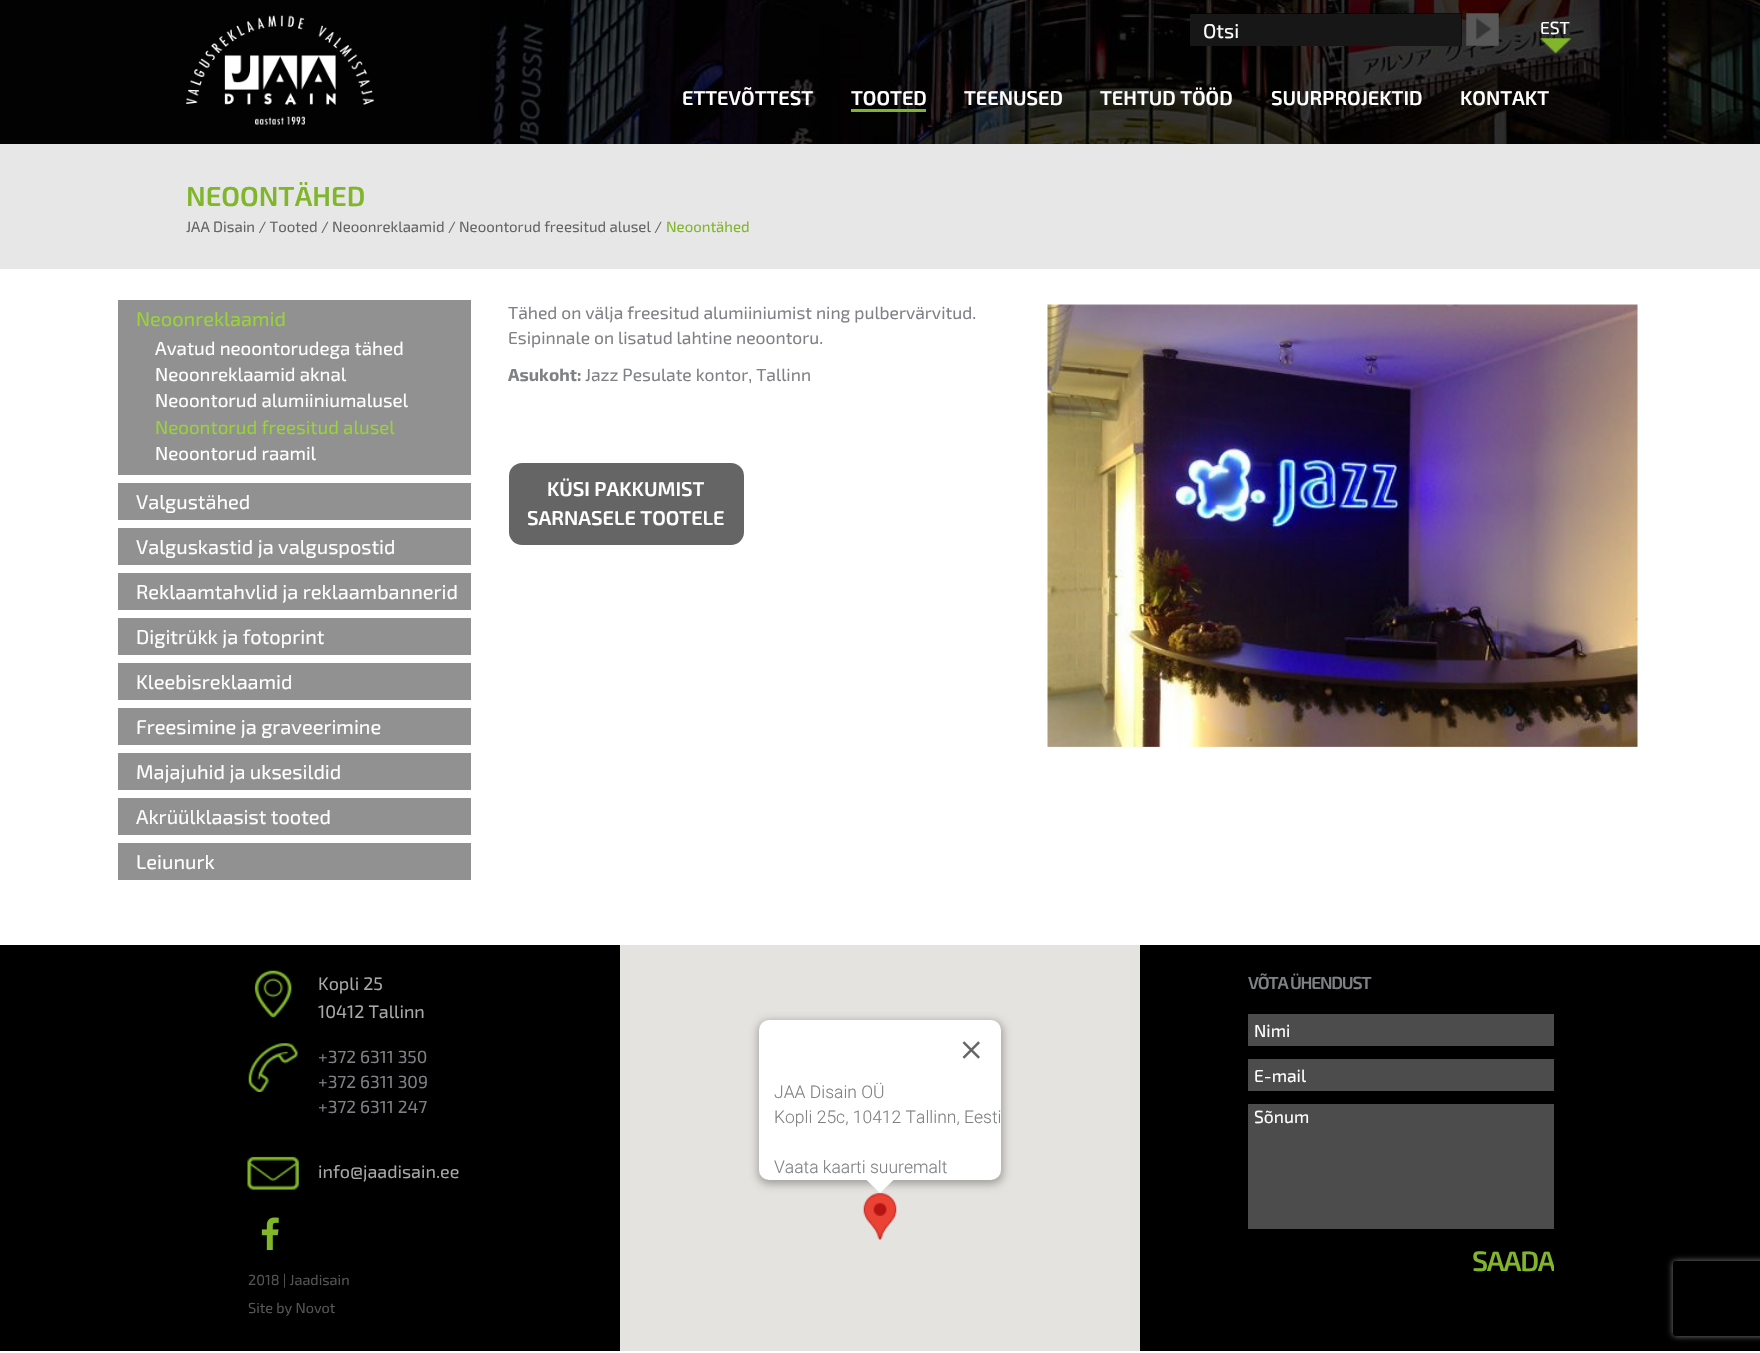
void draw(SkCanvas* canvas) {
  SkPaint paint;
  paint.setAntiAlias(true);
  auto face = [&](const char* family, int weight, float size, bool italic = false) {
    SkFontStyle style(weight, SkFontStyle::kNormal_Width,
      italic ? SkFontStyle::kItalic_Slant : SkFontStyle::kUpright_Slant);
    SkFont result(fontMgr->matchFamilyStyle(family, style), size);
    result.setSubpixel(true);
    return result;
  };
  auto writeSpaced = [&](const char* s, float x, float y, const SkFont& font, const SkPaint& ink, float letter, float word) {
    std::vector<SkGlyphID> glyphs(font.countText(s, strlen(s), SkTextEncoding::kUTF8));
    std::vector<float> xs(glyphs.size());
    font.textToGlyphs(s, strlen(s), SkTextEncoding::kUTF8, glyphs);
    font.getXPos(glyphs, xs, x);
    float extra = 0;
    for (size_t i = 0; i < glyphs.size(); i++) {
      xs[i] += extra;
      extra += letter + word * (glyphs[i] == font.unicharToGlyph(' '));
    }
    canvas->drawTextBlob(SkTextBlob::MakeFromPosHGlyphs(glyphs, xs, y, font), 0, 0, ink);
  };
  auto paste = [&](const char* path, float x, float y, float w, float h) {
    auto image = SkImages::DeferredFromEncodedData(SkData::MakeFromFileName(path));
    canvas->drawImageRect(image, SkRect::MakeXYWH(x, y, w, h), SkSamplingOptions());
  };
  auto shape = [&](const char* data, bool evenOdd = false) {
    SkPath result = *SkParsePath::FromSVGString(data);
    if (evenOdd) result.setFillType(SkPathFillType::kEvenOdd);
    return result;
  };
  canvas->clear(0xffffffff);
  paste("img/1.png", 0, 0, 1760, 144);
  paint.setColor(0xb3000000);
  canvas->drawRect(SkRect::MakeXYWH(480, 0, 1280, 144), paint);
  paste("img/2.png", 186, 15, 188, 110);
  paint.setColor(0xff4c4c4c);
  canvas->drawRect(SkRect::MakeXYWH(1190, 14, 271, 32), paint);
  paint.setColor(0xb3000000);
  canvas->drawRect(SkRect::MakeXYWH(1190, 13, 272, 33), paint);
  paste("img/3.png", 1466, 13, 33, 33);
  paste("img/4.png", 1540, 38, 32, 16);
  {
    const struct { float x, y, w, h; SkColor color; } items[] = {
      {851, 109, 75, 3, 0xff81b62b},
      {0, 144, 1760, 125, 0xffe7e7e7},
      {118, 300, 353, 175, 0xff919191},
      {118, 483, 353, 37, 0xff919191},
      {118, 528, 353, 37, 0xff919191},
      {118, 573, 353, 37, 0xff919191},
      {118, 618, 353, 37, 0xff919191},
      {118, 663, 353, 37, 0xff919191},
      {118, 708, 353, 37, 0xff919191},
      {118, 753, 353, 37, 0xff919191},
      {118, 798, 353, 37, 0xff919191},
      {118, 843, 353, 37, 0xff919191},
    };
    for (auto [x, y, w, h, color] : items) {
      paint.setColor(color);
      canvas->drawRect(SkRect::MakeXYWH(x, y, w, h), paint);
    }
  }
  paste("img/5.png", 1047, 304, 591, 443);
  paint.setColor(0xff656565);
  canvas->drawRoundRect(SkRect::MakeXYWH(509, 463, 235, 82), 13, 13, paint);
  paint.setColor(0xff000000);
  canvas->drawRect(SkRect::MakeXYWH(0, 945, 1760, 406), paint);
  paste("img/6.png", 254, 970, 38, 48);
  paste("img/7.png", 248, 1043, 50, 49);
  paste("img/8.png", 247, 1156, 52, 34);
  paste("img/9.png", 261, 1217, 18, 33);
  paint.setColor(0xffe5e3df);
  canvas->drawRect(SkRect::MakeXYWH(620, 945, 520, 406), paint);
  paste("img/11.png", 863, 1193, 34, 47);
  paint.setColor(0x4d000000);
  paint.setMaskFilter(SkMaskFilter::MakeBlur(kNormal_SkBlurStyle, 4.5f));
  canvas->drawRoundRect(SkRect::MakeXYWH(758, 1021, 245, 163), 11, 11, paint);
  paint.setMaskFilter(nullptr);
  paint.setColor(0xffffffff);
  canvas->drawRoundRect(SkRect::MakeXYWH(759, 1020, 242, 160), 10, 10, paint);
  paste("img/10.png", 962, 1041, 18, 18);
  canvas->drawPath(shape("M894.5 1179H865.5L880 1193Z"), paint);
  {
    const struct { float x, y, w, h; SkColor color; } items[] = {
      {1248, 1014, 306, 32, 0xff4c4c4c},
      {1248, 1059, 306, 32, 0xff4c4c4c},
      {1248, 1104, 306, 125, 0xff4c4c4c},
    };
    for (auto [x, y, w, h, color] : items) {
      paint.setColor(color);
      canvas->drawRect(SkRect::MakeXYWH(x, y, w, h), paint);
    }
  }
  canvas->save();
  canvas->clipPath(shape("M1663 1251H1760V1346H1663ZM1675.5 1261H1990.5C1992 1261 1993 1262 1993 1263.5V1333.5C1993 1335 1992 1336 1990.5 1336H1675.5C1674 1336 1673 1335 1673 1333.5V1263.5C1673 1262 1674 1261 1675.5 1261Z", true), true);
  paint.setColor(0xff808080);
  paint.setMaskFilter(SkMaskFilter::MakeBlur(kNormal_SkBlurStyle, 3));
  canvas->drawRoundRect(SkRect::MakeXYWH(1673, 1261, 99, 75), 2.5f, 2.5f, paint);
  paint.setMaskFilter(nullptr);
  canvas->restore();
  auto f0 = face("Exo 2", 400, 20);
  paint.setColor(0xffffffff);
  canvas->drawString("Otsi", 1203, 38, f0, paint);
  auto f1 = face("Exo 2", 400, 17.5f);
  canvas->drawString("EST", 1540, 34, f1, paint);
  auto f2 = face("Exo 2", 600, 20);
  {
    const struct { const char* s; float x, y; } items[] = {
      {"ETTEVÕTTEST", 682, 105},
      {"TOOTED", 851, 105},
      {"TEENUSED", 964, 105},
      {"TEHTUD TÖÖD", 1100, 105},
      {"SUURPROJEKTID", 1271, 105},
      {"KONTAKT", 1460, 105},
    };
    for (auto [s, x, y] : items) {
      canvas->drawString(s, x, y, f2, paint);
    }
  }
  auto f3 = face("Exo 2", 600, 27.5f);
  paint.setColor(0xff81b62b);
  canvas->drawString("NEOONTÄHED", 186, 206, f3, paint);
  auto f4 = face("Exo 2", 400, 15);
  paint.setColor(0xff656565);
  canvas->drawString("JAA Disain / Tooted / Neoonreklaamid / Neoontorud freesitud alusel /", 186, 232, f4, paint);
  paint.setColor(0xff81b62b);
  canvas->drawString("Neoontähed", 666, 232, f4, paint);
  paint.setColor(0xff98d337);
  canvas->drawString("Neoonreklaamid", 136, 326, f0, paint);
  auto f5 = face("Exo 2", 400, 18.75f);
  paint.setColor(0xffffffff);
  {
    const struct { const char* s; float x, y; } items[] = {
      {"Avatud neoontorudega tähed", 155, 355},
      {"Neoonreklaamid aknal", 155, 381},
      {"Neoontorud alumiiniumalusel", 155, 407},
    };
    for (auto [s, x, y] : items) {
      canvas->drawString(s, x, y, f5, paint);
    }
  }
  paint.setColor(0xff98d337);
  canvas->drawString("Neoontorud freesitud alusel", 155, 434, f5, paint);
  paint.setColor(0xffffffff);
  canvas->drawString("Neoontorud raamil", 155, 460, f5, paint);
  {
    const struct { const char* s; float x, y; } items[] = {
      {"Valgustähed", 136, 509},
      {"Valguskastid ja valguspostid", 136, 554},
      {"Reklaamtahvlid ja reklaambannerid", 136, 599},
      {"Digitrükk ja fotoprint", 136, 644},
      {"Kleebisreklaamid", 136, 689},
      {"Freesimine ja graveerimine", 136, 734},
      {"Majajuhid ja uksesildid", 136, 779},
      {"Akrüülklaasist tooted", 136, 824},
      {"Leiunurk", 136, 869},
    };
    for (auto [s, x, y] : items) {
      canvas->drawString(s, x, y, f0, paint);
    }
  }
  paint.setColor(0xff808184);
  canvas->drawString("Tähed on välja freesitud alumiiniumist ning pulbervärvitud.", 508, 319, f1, paint);
  canvas->drawString("Esipinnale on lisatud lahtine neoontoru.", 508, 344, f1, paint);
  auto f6 = face("Exo 2", 700, 17.5f);
  canvas->drawString("Asukoht:", 508, 381, f6, paint);
  canvas->drawString("Jazz Pesulate kontor, Tallinn", 585, 381, f1, paint);
  paint.setColor(0xffffffff);
  canvas->drawString("KÜSI PAKKUMIST", 547, 496, f2, paint);
  canvas->drawString("SARNASELE TOOTELE", 527, 525, f2, paint);
  auto f7 = face("Exo 2", 400, 18);
  paint.setColor(0xffa8a8a9);
  canvas->drawString("Kopli 25", 318, 990, f7, paint);
  canvas->drawString("10412 Tallinn", 318, 1018, f7, paint);
  paint.setColor(0xff808184);
  {
    const struct { const char* s; float x, y; } items[] = {
      {"+372 6311 350", 318, 1063},
      {"+372 6311 309", 318, 1088},
      {"+372 6311 247", 318, 1113},
    };
    for (auto [s, x, y] : items) {
      canvas->drawString(s, x, y, f1, paint);
    }
  }
  paint.setColor(0xffa8a8a9);
  canvas->drawString("info@jaadisain.ee", 318, 1178, f7, paint);
  auto f8 = face("Exo 2", 400, 14.5f);
  paint.setColor(0xff545455);
  canvas->drawString("2018 | Jaadisain", 248, 1285, f8, paint);
  canvas->drawString("Site by Novot", 248, 1313, f8, paint);
  auto f9 = face("Roboto", 300, 17.5f);
  paint.setColor(0xff808184);
  {
    const struct { const char* s; float x, y; } items[] = {
      {"JAA Disain OÜ", 774, 1098},
      {"Kopli 25c, 10412 Tallinn, Eesti", 774, 1123},
      {"Vaata kaarti suuremalt", 774, 1173},
    };
    for (auto [s, x, y] : items) {
      canvas->drawString(s, x, y, f9, paint);
    }
  }
  auto f10 = face("Exo 2", 600, 17.5f);
  writeSpaced("VÕTA ÜHENDUST", 1248, 989, f10, paint, -1.25f, 0);
  paint.setColor(0xffffffff);
  {
    const struct { const char* s; float x, y; } items[] = {
      {"Nimi", 1254, 1037},
      {"E-mail", 1254, 1082},
      {"Sõnum", 1254, 1123},
    };
    for (auto [s, x, y] : items) {
      canvas->drawString(s, x, y, f1, paint);
    }
  }
  canvas->save();
  canvas->clipRect(SkRect::MakeXYWH(1473, 1248, 81, 25));
  auto f11 = face("Exo 2", 600, 28);
  paint.setColor(0xff81b62b);
  writeSpaced("SAADA", 1472, 1271, f11, paint, -1.25f, 0);
  canvas->restore();
}
